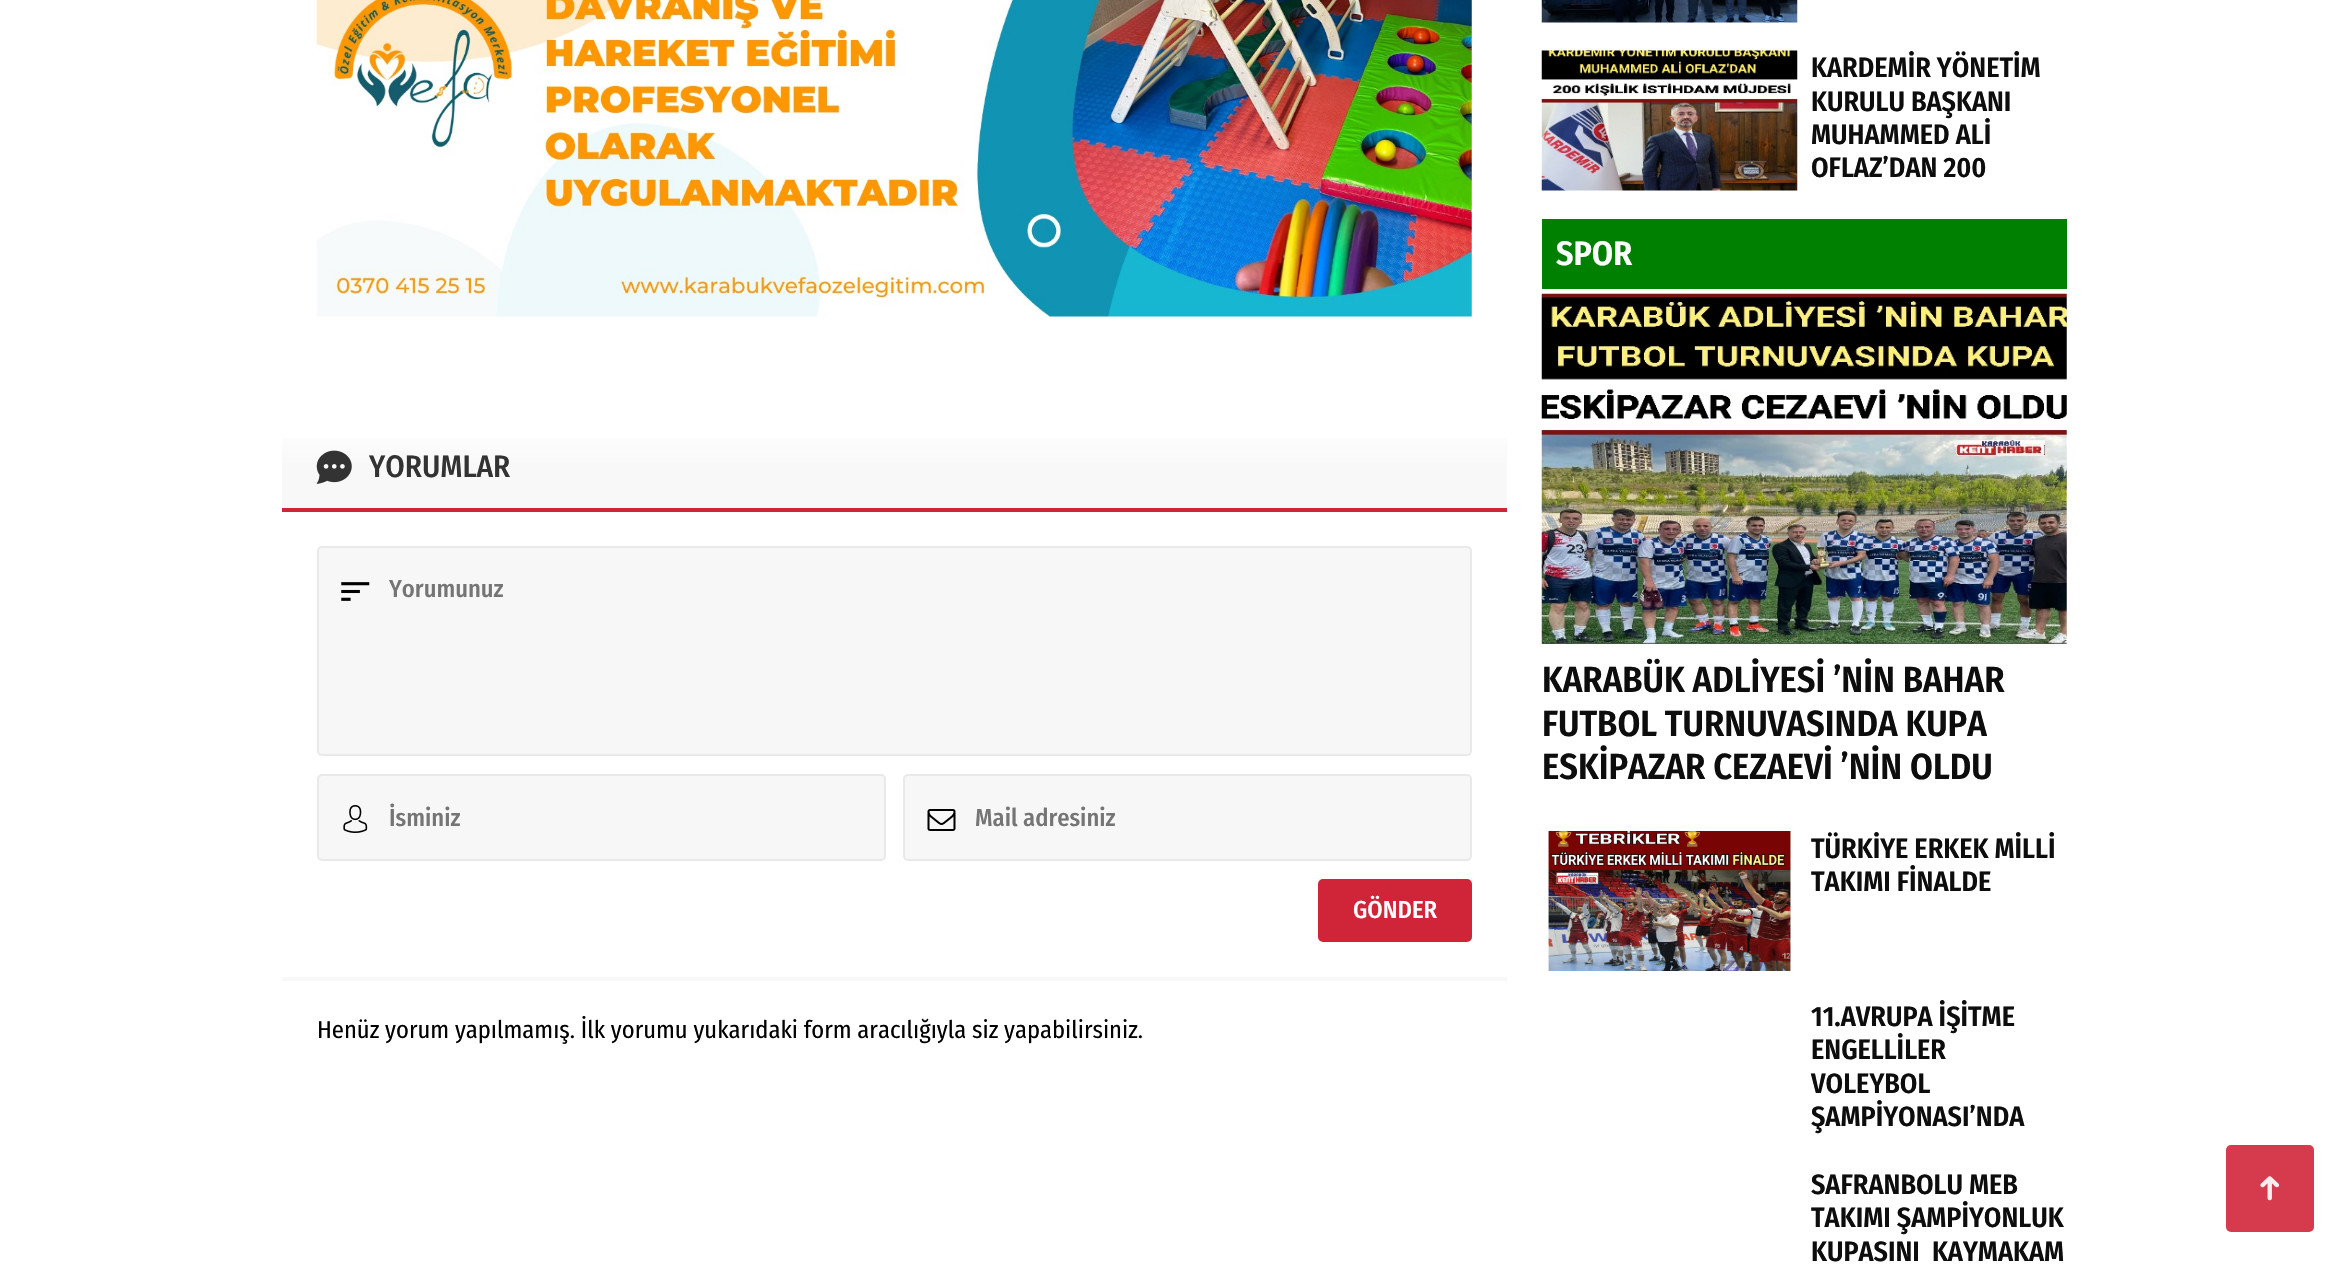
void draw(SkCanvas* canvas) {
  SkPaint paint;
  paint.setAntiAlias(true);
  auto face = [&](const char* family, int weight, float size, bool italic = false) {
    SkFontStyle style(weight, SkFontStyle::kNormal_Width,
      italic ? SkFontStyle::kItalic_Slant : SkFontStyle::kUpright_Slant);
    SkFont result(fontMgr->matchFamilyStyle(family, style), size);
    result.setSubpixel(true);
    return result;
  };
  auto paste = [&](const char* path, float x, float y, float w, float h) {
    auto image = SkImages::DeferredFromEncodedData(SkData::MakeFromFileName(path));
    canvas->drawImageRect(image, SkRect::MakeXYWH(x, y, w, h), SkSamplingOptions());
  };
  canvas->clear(0xffffffff);
  paste("img/1.png", 316, 0, 1156, 317);
  {
    const SkColor colors[] = {0xffffffff, 0xfff8f8f8};
    const float stops[] = {0, 0.5f};
    const SkPoint ends[] = {{894, 422}, {894, 511}};
    paint.setShader(SkGradientShader::MakeLinear(ends, colors, stops, 2, SkTileMode::kClamp));
    paint.setAlpha(255);
  }
  canvas->drawRect(SkRect::MakeXYWH(282, 438, 1225, 70), paint);
  paste("img/2.png", 316, 450, 36, 34);
  paint.setShader(nullptr);
  paint.setColor(0xffd02539);
  canvas->drawRect(SkRect::MakeXYWH(282, 508, 1225, 4), paint);
  paint.setColor(0xfff7f7f7);
  canvas->drawRoundRect(SkRect::MakeXYWH(318, 547, 1153, 208), 4, 4, paint);
  paint.setStroke(true);
  paint.setStrokeWidth(2);
  paint.setColor(0xffe9e9e9);
  canvas->drawRoundRect(SkRect::MakeXYWH(318, 547, 1153, 208), 4, 4, paint);
  paste("img/3.png", 341, 582, 29, 19);
  paint.setStroke(false);
  paint.setColor(0xfff7f7f7);
  canvas->drawRoundRect(SkRect::MakeXYWH(318, 775, 567, 85), 4, 4, paint);
  paint.setStroke(true);
  paint.setColor(0xffe9e9e9);
  canvas->drawRoundRect(SkRect::MakeXYWH(318, 775, 567, 85), 4, 4, paint);
  paste("img/4.png", 343, 805, 25, 28);
  paint.setStroke(false);
  paint.setColor(0xfff7f7f7);
  canvas->drawRoundRect(SkRect::MakeXYWH(904, 775, 567, 85), 4, 4, paint);
  paint.setStroke(true);
  paint.setColor(0xffe9e9e9);
  canvas->drawRoundRect(SkRect::MakeXYWH(904, 775, 567, 85), 4, 4, paint);
  paste("img/5.png", 927, 809, 29, 22);
  paint.setStroke(false);
  paint.setColor(0xffd02539);
  canvas->drawRoundRect(SkRect::MakeXYWH(1318, 879, 154, 63), 5, 5, paint);
  paint.setColor(0xfff8f8f8);
  canvas->drawRect(SkRect::MakeXYWH(282, 977, 1225, 4), paint);
  paste("img/6.png", 1541, 0, 257, 23);
  paste("img/7.png", 1541, 50, 257, 141);
  paint.setColor(0xff008000);
  canvas->drawRect(SkRect::MakeXYWH(1542, 219, 525, 70), paint);
  paste("img/8.png", 1541, 293, 526, 351);
  paste("img/9.png", 1547, 831, 244, 140);
  paint.setColor(0xffd53b4d);
  canvas->drawRoundRect(SkRect::MakeXYWH(2226, 1145, 88, 87), 5, 5, paint);
  paste("img/10.png", 2260, 1176, 20, 25);
  auto f0 = face("Fira Sans Condensed", 500, 31);
  paint.setColor(0xff333333);
  canvas->drawString("YORUMLAR", 369, 477, f0, paint);
  auto f1 = face("Fira Sans Condensed", 500, 24.5f);
  paint.setColor(0xff757575);
  {
    const struct { const char* s; float x, y; } items[] = {
      {"Yorumunuz", 389, 597},
      {"İsminiz", 389, 826},
      {"Mail adresiniz", 975, 826},
    };
    for (auto [s, x, y] : items) {
      canvas->drawString(s, x, y, f1, paint);
    }
  }
  paint.setColor(0xffffffff);
  canvas->drawString("GÖNDER", 1353, 918, f1, paint);
  auto f2 = face("Fira Sans Condensed", 400, 24.5f);
  paint.setColor(0xff000000);
  canvas->drawString("Henüz yorum yapılmamış. İlk yorumu yukarıdaki form aracılığıyla siz yapabilirsiniz.", 317, 1038, f2, paint);
  auto f3 = face("Fira Sans Condensed", 600, 28);
  paint.setColor(0xff0d0d0d);
  {
    const struct { const char* s; float x, y; } items[] = {
      {"KARDEMİR YÖNETİM", 1811, 77},
      {"KURULU BAŞKANI", 1811, 111},
      {"MUHAMMED ALİ", 1811, 144},
      {"OFLAZ’DAN 200", 1811, 177},
    };
    for (auto [s, x, y] : items) {
      canvas->drawString(s, x, y, f3, paint);
    }
  }
  auto f4 = face("Fira Sans Condensed", 600, 34);
  paint.setColor(0xffffffff);
  canvas->drawString("SPOR", 1556, 265, f4, paint);
  auto f5 = face("Fira Sans Condensed", 600, 36.4f);
  paint.setColor(0xff0d0d0d);
  {
    const struct { const char* s; float x, y; } items[] = {
      {"KARABÜK ADLİYESİ ’NİN BAHAR", 1542, 692},
      {"FUTBOL TURNUVASINDA KUPA", 1542, 736},
      {"ESKİPAZAR CEZAEVİ ’NİN OLDU", 1542, 779},
    };
    for (auto [s, x, y] : items) {
      canvas->drawString(s, x, y, f5, paint);
    }
  }
  {
    const struct { const char* s; float x, y; } items[] = {
      {"TÜRKİYE ERKEK MİLLİ", 1811, 858},
      {"TAKIMI FİNALDE", 1811, 891},
      {"11.AVRUPA İŞİTME", 1811, 1026},
      {"ENGELLİLER", 1811, 1059},
      {"VOLEYBOL", 1811, 1093},
      {"ŞAMPİYONASI’NDA", 1811, 1126},
      {"SAFRANBOLU MEB", 1811, 1194},
      {"TAKIMI ŞAMPİYONLUK", 1811, 1227},
      {"KUPASINI  KAYMAKAM", 1811, 1261},
    };
    for (auto [s, x, y] : items) {
      canvas->drawString(s, x, y, f3, paint);
    }
  }
}
